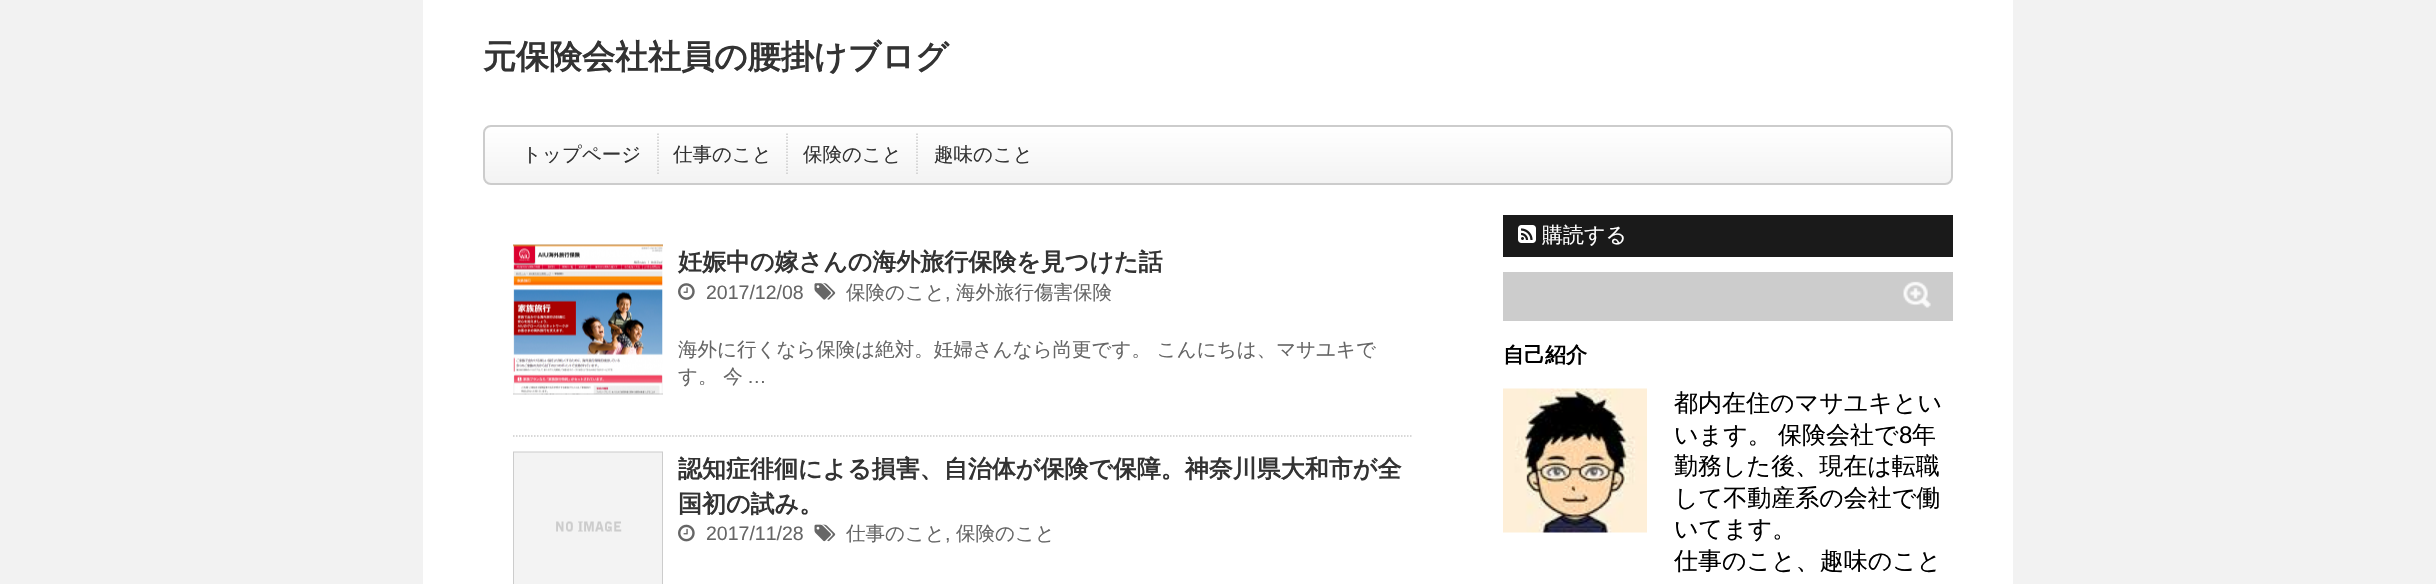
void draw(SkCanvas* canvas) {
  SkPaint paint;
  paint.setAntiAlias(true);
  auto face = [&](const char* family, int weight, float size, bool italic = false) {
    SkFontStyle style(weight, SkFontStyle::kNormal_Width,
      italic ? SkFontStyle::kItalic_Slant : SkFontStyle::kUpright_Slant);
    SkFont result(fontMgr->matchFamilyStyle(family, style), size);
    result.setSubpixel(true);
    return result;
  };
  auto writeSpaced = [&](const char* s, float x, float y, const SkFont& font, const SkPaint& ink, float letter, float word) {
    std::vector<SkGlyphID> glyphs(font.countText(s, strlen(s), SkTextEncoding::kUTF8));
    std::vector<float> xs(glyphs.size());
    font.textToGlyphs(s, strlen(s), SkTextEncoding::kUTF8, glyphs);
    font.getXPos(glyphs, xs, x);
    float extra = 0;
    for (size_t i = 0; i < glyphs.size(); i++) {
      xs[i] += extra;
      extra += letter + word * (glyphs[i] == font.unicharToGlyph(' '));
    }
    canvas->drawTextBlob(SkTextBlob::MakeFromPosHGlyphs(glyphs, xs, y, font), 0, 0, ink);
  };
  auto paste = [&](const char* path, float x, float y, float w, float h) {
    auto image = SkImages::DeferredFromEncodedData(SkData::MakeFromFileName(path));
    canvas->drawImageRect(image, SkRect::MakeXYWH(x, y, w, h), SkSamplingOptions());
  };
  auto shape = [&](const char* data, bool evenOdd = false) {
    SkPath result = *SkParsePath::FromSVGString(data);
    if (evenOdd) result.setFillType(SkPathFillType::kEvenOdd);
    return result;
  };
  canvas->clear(0xfff2f2f2);
  paint.setColor(0xffffffff);
  canvas->drawRect(SkRect::MakeXYWH(423, 0, 1590, 584), paint);
  canvas->save();
  canvas->clipPath(shape("M491 125H1945C1949.5 125 1953 128.5 1953 133V177C1953 181.5 1949.5 185 1945 185H491C486.5 185 483 181.5 483 177V133C483 128.5 486.5 125 491 125Z"), true);
  {
    const SkColor colors[] = {0xffffffff, 0xfff3f3f3};
    const float stops[] = {0, 1};
    const SkPoint ends[] = {{1218, 126}, {1218, 183}};
    paint.setShader(SkGradientShader::MakeLinear(ends, colors, stops, 2, SkTileMode::kClamp));
    paint.setAlpha(255);
  }
  canvas->drawRect(SkRect::MakeXYWH(483, 126, 1470, 57), paint);
  canvas->restore();
  paint.setStroke(true);
  paint.setStrokeWidth(2);
  paint.setShader(nullptr);
  paint.setColor(0xffcccccc);
  canvas->drawRoundRect(SkRect::MakeXYWH(484, 126, 1468, 58), 7, 7, paint);
  paint.setStrokeWidth(1.5f);
  paint.setPathEffect(SkDashPathEffect::Make({{1.5f, 1.5f}}, 0));
  canvas->drawPath(shape("M658 133.5V175.5"), paint);
  paint.setPathEffect(nullptr);
  paint.setPathEffect(SkDashPathEffect::Make({{1.5f, 1.5f}}, 0));
  canvas->drawPath(shape("M787 133.5V175.5"), paint);
  paint.setPathEffect(nullptr);
  paint.setPathEffect(SkDashPathEffect::Make({{1.5f, 1.5f}}, 0));
  canvas->drawPath(shape("M917 133.5V175.5"), paint);
  paint.setPathEffect(nullptr);
  paint.setPathEffect(SkDashPathEffect::Make({{1.5f, 1.5f}}, 0));
  canvas->drawPath(shape("M513 436H1413"), paint);
  paint.setPathEffect(nullptr);
  paste("img/1.png", 513, 244, 150, 151);
  paste("img/2.png", 678, 283, 17, 17);
  paste("img/3.png", 814, 283, 22, 17);
  paste("img/4.png", 513, 451, 150, 133);
  paste("img/5.png", 678, 524, 17, 18);
  paste("img/6.png", 814, 524, 22, 18);
  paint.setStroke(false);
  paint.setColor(0xff1a1a1a);
  canvas->drawRect(SkRect::MakeXYWH(1503, 215, 450, 42), paint);
  paste("img/7.png", 1518, 225, 18, 18);
  paint.setColor(0xffcccccc);
  canvas->drawRect(SkRect::MakeXYWH(1503, 272, 450, 49), paint);
  paste("img/8.png", 1903, 281, 28, 27);
  paste("img/9.png", 1503, 388, 144, 145);
  auto f0 = face("WenQuanYi Zen Hei", 700, 33);
  paint.setColor(0xff333333);
  canvas->drawString("元保険会社社員の腰掛けブログ", 483, 68, f0, paint);
  auto f1 = face("WenQuanYi Zen Hei", 500, 19.5f);
  {
    const struct { const char* s; float x, y; } items[] = {
      {"トップページ", 522, 161},
      {"仕事のこと", 673, 161},
      {"保険のこと", 803, 161},
      {"趣味のこと", 934, 161},
    };
    for (auto [s, x, y] : items) {
      canvas->drawString(s, x, y, f1, paint);
    }
  }
  auto f2 = face("WenQuanYi Zen Hei", 700, 24);
  canvas->drawString("妊娠中の嫁さんの海外旅行保険を見つけた話", 678, 270, f2, paint);
  auto f3 = face("Liberation Sans", 400, 19.5f);
  paint.setColor(0xff666666);
  canvas->drawString("2017/12/08", 706, 299, f3, paint);
  canvas->drawString("保険のこと", 846, 299, f1, paint);
  canvas->drawString(",", 945, 299, f3, paint);
  {
    const struct { const char* s; float x, y; } items[] = {
      {"海外旅行傷害保険", 956, 299},
      {"海外に行くなら保険は絶対。妊婦さんなら尚更です。 こんにちは、マサユキで", 678, 356},
      {"す。 今", 678, 383},
    };
    for (auto [s, x, y] : items) {
      canvas->drawString(s, x, y, f1, paint);
    }
  }
  canvas->drawString("…", 747, 383, f3, paint);
  paint.setColor(0xff333333);
  canvas->drawString("認知症徘徊による損害、自治体が保険で保障。神奈川県大和市が全", 678, 477, f2, paint);
  canvas->drawString("国初の試み。", 678, 512, f2, paint);
  paint.setColor(0xff666666);
  canvas->drawString("2017/11/28", 706, 540, f3, paint);
  canvas->drawString("仕事のこと", 846, 540, f1, paint);
  canvas->drawString(",", 945, 540, f3, paint);
  canvas->drawString("保険のこと", 956, 540, f1, paint);
  auto f4 = face("WenQuanYi Zen Hei", 500, 21);
  paint.setColor(0xffffffff);
  canvas->drawString("購読する", 1542, 242, f4, paint);
  auto f5 = face("WenQuanYi Zen Hei", 700, 21);
  paint.setColor(0xff000000);
  canvas->drawString("自己紹介", 1503, 362, f5, paint);
  auto f6 = face("WenQuanYi Zen Hei", 500, 24);
  canvas->drawString("都内在住のマサユキとい", 1674, 411, f6, paint);
  writeSpaced("います。 保険会社で", 1674, 443, f6, paint, 0, -1);
  auto f7 = face("Liberation Sans", 400, 24);
  canvas->drawString("8", 1899, 443, f7, paint);
  {
    const struct { const char* s; float x, y; } items[] = {
      {"年", 1912, 443},
      {"勤務した後、現在は転職", 1674, 474},
      {"して不動産系の会社で働", 1674, 506},
      {"いてます。", 1674, 537},
      {"仕事のこと、趣味のこと", 1674, 569},
    };
    for (auto [s, x, y] : items) {
      canvas->drawString(s, x, y, f6, paint);
    }
  }
}
